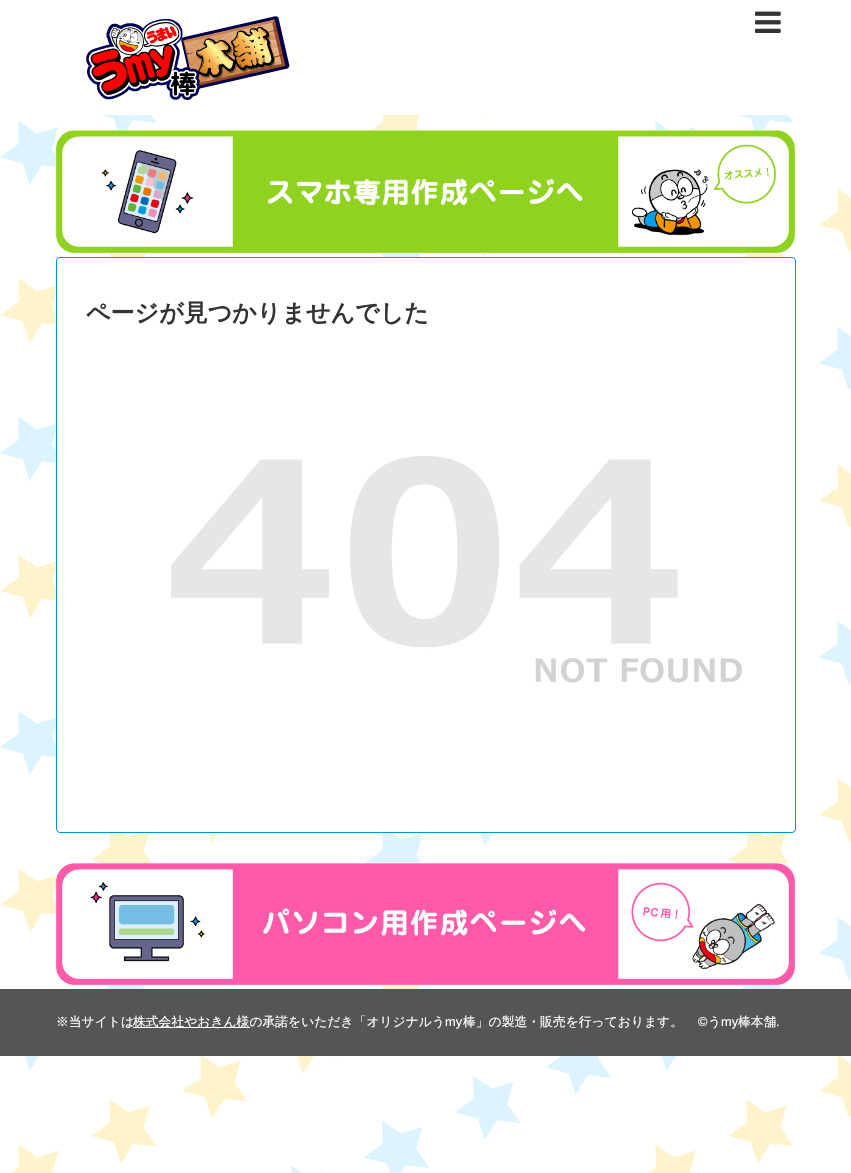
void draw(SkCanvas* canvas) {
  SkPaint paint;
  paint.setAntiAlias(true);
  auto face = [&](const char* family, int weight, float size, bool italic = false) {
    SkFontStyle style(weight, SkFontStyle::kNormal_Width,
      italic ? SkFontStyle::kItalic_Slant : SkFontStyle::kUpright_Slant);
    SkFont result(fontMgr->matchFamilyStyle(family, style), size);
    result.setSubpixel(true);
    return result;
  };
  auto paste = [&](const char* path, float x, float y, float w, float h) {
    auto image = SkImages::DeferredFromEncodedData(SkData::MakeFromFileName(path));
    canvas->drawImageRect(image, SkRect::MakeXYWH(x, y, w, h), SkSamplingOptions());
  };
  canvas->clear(0xffffffff);
  paste("img/1.png", 0, 115, 851, 1058);
  paste("img/2.png", 86, 16, 204, 84);
  paste("img/3.png", 755, 11, 26, 22);
  paste("img/4.png", 56, 130, 739, 123);
  paint.setColor(0xffffffff);
  canvas->drawRoundRect(SkRect::MakeXYWH(56.5f, 257.5f, 739, 575), 3.5f, 3.5f, paint);
  paint.setStroke(true);
  paint.setStrokeWidth(1);
  paint.setColor(0xff0093d3);
  canvas->drawRoundRect(SkRect::MakeXYWH(56.5f, 257.5f, 739, 575), 3.5f, 3.5f, paint);
  paste("img/5.png", 171, 456, 571, 227);
  paste("img/6.png", 56, 863, 739, 122);
  paint.setStroke(false);
  paint.setColor(0xff555555);
  canvas->drawRect(SkRect::MakeXYWH(0, 989, 851, 67), paint);
  paint.setColor(0xffffffff);
  canvas->drawRect(SkRect::MakeXYWH(133, 1027, 117, 1), paint);
  auto f0 = face("WenQuanYi Zen Hei", 700, 24);
  paint.setColor(0xff333333);
  canvas->drawString("ページが見つかりませんでした", 86, 321, f0, paint);
  auto f1 = face("WenQuanYi Zen Hei", 500, 12.8f);
  paint.setColor(0xffffffff);
  canvas->drawString("※当サイトは", 56, 1026, f1, paint);
  canvas->drawString("株式会社やおきん様の承諾をいただき「オリジナルう", 133, 1026, f1, paint);
  auto f2 = face("Liberation Sans", 400, 12.8f);
  canvas->drawString("my", 445, 1026, f2, paint);
  canvas->drawString("棒」の製造・販売を行っております。", 463, 1026, f1, paint);
  canvas->drawString("©", 698, 1026, f2, paint);
  canvas->drawString("う", 708, 1026, f1, paint);
  canvas->drawString("my", 721, 1026, f2, paint);
  canvas->drawString("棒本舗", 738, 1026, f1, paint);
  canvas->drawString(".", 776, 1026, f2, paint);
}
